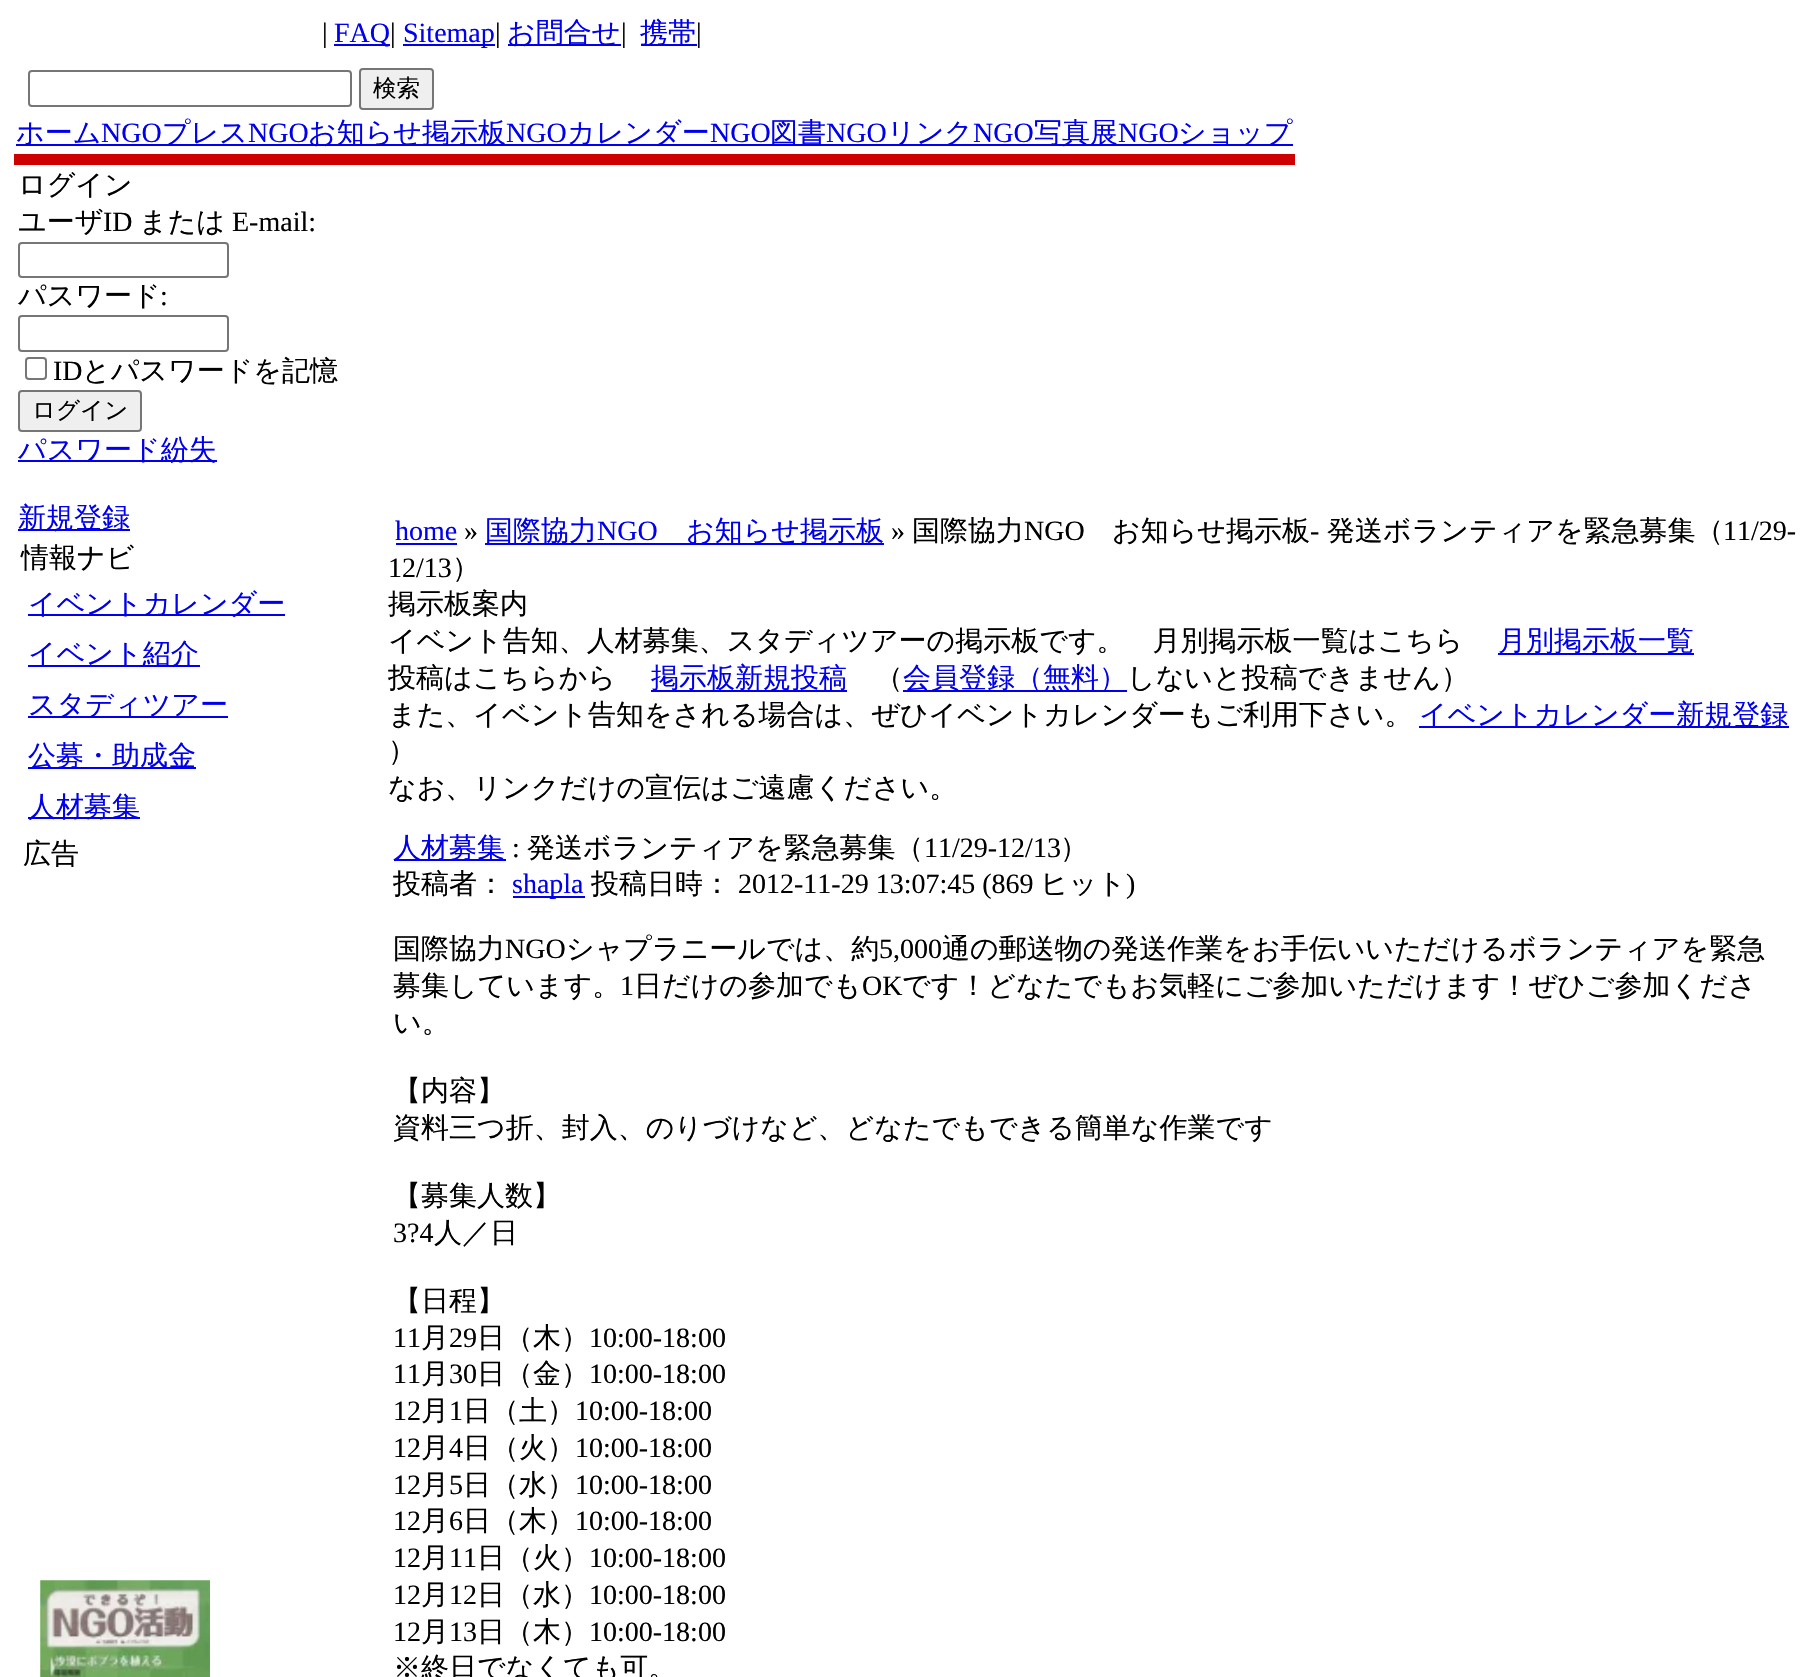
void draw(SkCanvas* canvas) {
  SkPaint paint;
  paint.setAntiAlias(true);
  auto face = [&](const char* family, int weight, float size, bool italic = false) {
    SkFontStyle style(weight, SkFontStyle::kNormal_Width,
      italic ? SkFontStyle::kItalic_Slant : SkFontStyle::kUpright_Slant);
    SkFont result(fontMgr->matchFamilyStyle(family, style), size);
    result.setSubpixel(true);
    return result;
  };
  auto paste = [&](const char* path, float x, float y, float w, float h) {
    auto image = SkImages::DeferredFromEncodedData(SkData::MakeFromFileName(path));
    canvas->drawImageRect(image, SkRect::MakeXYWH(x, y, w, h), SkSamplingOptions());
  };
  canvas->clear(0xffffffff);
  {
    const struct { float x, y, w, h; SkColor color; } items[] = {
      {334, 44, 56, 2, 0xff0000ee},
      {403, 44, 92, 2, 0xff0000ee},
      {508, 44, 113, 2, 0xff0000ee},
      {641, 44, 56, 2, 0xff0000ee},
    };
    for (auto [x, y, w, h, color] : items) {
      paint.setColor(color);
      canvas->drawRect(SkRect::MakeXYWH(x, y, w, h), paint);
    }
  }
  paint.setStroke(true);
  paint.setStrokeWidth(2);
  paint.setColor(0xff767676);
  canvas->drawRoundRect(SkRect::MakeXYWH(29, 71, 322, 35), 3, 3, paint);
  paint.setStroke(false);
  paint.setColor(0xffefefef);
  canvas->drawRoundRect(SkRect::MakeXYWH(360, 69, 73, 40), 3, 3, paint);
  paint.setStroke(true);
  paint.setColor(0xff767676);
  canvas->drawRoundRect(SkRect::MakeXYWH(360, 69, 73, 40), 3, 3, paint);
  paint.setStroke(false);
  paint.setColor(0xff0000ee);
  canvas->drawRect(SkRect::MakeXYWH(16, 144, 1277, 2), paint);
  paint.setColor(0xffce0000);
  canvas->drawRect(SkRect::MakeXYWH(14, 154, 1281, 11), paint);
  paint.setStroke(true);
  paint.setColor(0xff767676);
  canvas->drawRoundRect(SkRect::MakeXYWH(19, 243, 209, 34), 3, 3, paint);
  canvas->drawRoundRect(SkRect::MakeXYWH(19, 316, 209, 35), 3, 3, paint);
  canvas->drawRoundRect(SkRect::MakeXYWH(26, 358, 20, 21), 3, 3, paint);
  paint.setStroke(false);
  paint.setColor(0xffefefef);
  canvas->drawRoundRect(SkRect::MakeXYWH(19, 391, 122, 40), 3, 3, paint);
  paint.setStroke(true);
  paint.setColor(0xff767676);
  canvas->drawRoundRect(SkRect::MakeXYWH(19, 391, 122, 40), 3, 3, paint);
  paint.setStroke(false);
  {
    const struct { float x, y, w, h; SkColor color; } items[] = {
      {18, 460, 199, 2, 0xff0000ee},
      {18, 529, 112, 2, 0xff0000ee},
      {28, 614, 257, 2, 0xff0000ee},
      {28, 665, 172, 2, 0xff0000ee},
      {28, 716, 200, 2, 0xff0000ee},
      {28, 767, 168, 2, 0xff0000ee},
      {28, 817, 112, 2, 0xff0000ee},
    };
    for (auto [x, y, w, h, color] : items) {
      paint.setColor(color);
      canvas->drawRect(SkRect::MakeXYWH(x, y, w, h), paint);
    }
  }
  paste("img/1.png", 40, 1580, 170, 97);
  {
    const struct { float x, y, w, h; SkColor color; } items[] = {
      {396, 543, 61, 2, 0xff0000ee},
      {485, 543, 399, 2, 0xff0000ee},
      {1498, 653, 196, 2, 0xff0000ee},
      {651, 690, 196, 2, 0xff0000ee},
      {903, 690, 224, 2, 0xff0000ee},
      {1419, 726, 370, 2, 0xff0000ee},
      {394, 859, 112, 2, 0xff0000ee},
      {513, 896, 72, 2, 0xff0000ee},
    };
    for (auto [x, y, w, h, color] : items) {
      paint.setColor(color);
      canvas->drawRect(SkRect::MakeXYWH(x, y, w, h), paint);
    }
  }
  auto f0 = face("Liberation Serif", 400, 28);
  paint.setColor(0xff000000);
  canvas->drawString("|", 322, 42, f0, paint);
  paint.setColor(0xff0000ee);
  canvas->drawString("FAQ", 334, 42, f0, paint);
  paint.setColor(0xff000000);
  canvas->drawString("|", 390, 42, f0, paint);
  paint.setColor(0xff0000ee);
  canvas->drawString("Sitemap", 403, 42, f0, paint);
  paint.setColor(0xff000000);
  canvas->drawString("|", 495, 42, f0, paint);
  auto f1 = face("WenQuanYi Zen Hei", 500, 28);
  paint.setColor(0xff0000ee);
  canvas->drawString("お問合せ", 507, 42, f1, paint);
  paint.setColor(0xff000000);
  canvas->drawString("|", 621, 42, f0, paint);
  paint.setColor(0xff0000ee);
  canvas->drawString("携帯", 640, 42, f1, paint);
  paint.setColor(0xff000000);
  canvas->drawString("|", 696, 42, f0, paint);
  auto f2 = face("WenQuanYi Zen Hei", 500, 23.5f);
  canvas->drawString("検索", 373, 96, f2, paint);
  paint.setColor(0xff0000ee);
  canvas->drawString("ホーム", 16, 142, f1, paint);
  canvas->drawString("NGO", 101, 142, f0, paint);
  canvas->drawString("プレス", 162, 142, f1, paint);
  canvas->drawString("NGO", 248, 142, f0, paint);
  canvas->drawString("お知らせ掲示板", 308, 142, f1, paint);
  canvas->drawString("NGO", 506, 142, f0, paint);
  canvas->drawString("カレンダー", 567, 142, f1, paint);
  canvas->drawString("NGO", 710, 142, f0, paint);
  canvas->drawString("図書", 770, 142, f1, paint);
  canvas->drawString("NGO", 826, 142, f0, paint);
  canvas->drawString("リンク", 887, 142, f1, paint);
  canvas->drawString("NGO", 973, 142, f0, paint);
  canvas->drawString("写真展", 1034, 142, f1, paint);
  canvas->drawString("NGO", 1118, 142, f0, paint);
  canvas->drawString("ショップ", 1178, 142, f1, paint);
  paint.setColor(0xff000000);
  canvas->drawString("ログイン", 18, 194, f1, paint);
  canvas->drawString("ユーザ", 18, 231, f1, paint);
  canvas->drawString("ID", 103, 231, f0, paint);
  canvas->drawString("または", 139, 231, f1, paint);
  canvas->drawString("E-mail:", 232, 231, f0, paint);
  canvas->drawString("パスワード", 18, 305, f1, paint);
  canvas->drawString(":", 160, 305, f0, paint);
  canvas->drawString("ID", 53, 380, f0, paint);
  canvas->drawString("とパスワードを記憶", 82, 380, f1, paint);
  canvas->drawString("ログイン", 32, 418, f2, paint);
  paint.setColor(0xff0000ee);
  canvas->drawString("パスワード紛失", 18, 459, f1, paint);
  canvas->drawString("新規登録", 18, 527, f1, paint);
  paint.setColor(0xff000000);
  canvas->drawString("情報ナビ", 21, 567, f1, paint);
  paint.setColor(0xff0000ee);
  {
    const struct { const char* s; float x, y; } items[] = {
      {"イベントカレンダー", 28, 613},
      {"イベント紹介", 28, 663},
      {"スタディツアー", 28, 714},
      {"公募・助成金", 28, 765},
      {"人材募集", 28, 816},
    };
    for (auto [s, x, y] : items) {
      canvas->drawString(s, x, y, f1, paint);
    }
  }
  paint.setColor(0xff000000);
  canvas->drawString("広告", 23, 863, f1, paint);
  paint.setColor(0xff0000ee);
  canvas->drawString("home", 395, 540, f0, paint);
  paint.setColor(0xff000000);
  canvas->drawString("»", 464, 540, f0, paint);
  paint.setColor(0xff0000ee);
  canvas->drawString("国際協力", 485, 540, f1, paint);
  canvas->drawString("NGO", 597, 540, f0, paint);
  canvas->drawString("お知らせ掲示板", 686, 540, f1, paint);
  paint.setColor(0xff000000);
  canvas->drawString("»", 891, 540, f0, paint);
  canvas->drawString("国際協力", 912, 540, f1, paint);
  canvas->drawString("NGO", 1024, 540, f0, paint);
  canvas->drawString("お知らせ掲示板", 1112, 540, f1, paint);
  canvas->drawString("-", 1310, 540, f0, paint);
  canvas->drawString("発送ボランティアを緊急募集（", 1327, 540, f1, paint);
  canvas->drawString("11/29-", 1723, 540, f0, paint);
  canvas->drawString("12/13", 388, 577, f0, paint);
  {
    const struct { const char* s; float x, y; } items[] = {
      {"）", 452, 577},
      {"掲示板案内", 388, 613},
      {"イベント告知、人材募集、スタディツアーの掲示板です。　月別掲示板一覧はこちら", 388, 650},
    };
    for (auto [s, x, y] : items) {
      canvas->drawString(s, x, y, f1, paint);
    }
  }
  paint.setColor(0xff0000ee);
  canvas->drawString("月別掲示板一覧", 1498, 650, f1, paint);
  paint.setColor(0xff000000);
  canvas->drawString("投稿はこちらから", 388, 687, f1, paint);
  paint.setColor(0xff0000ee);
  canvas->drawString("掲示板新規投稿", 651, 687, f1, paint);
  paint.setColor(0xff000000);
  canvas->drawString("（", 875, 687, f1, paint);
  paint.setColor(0xff0000ee);
  canvas->drawString("会員登録（無料）", 903, 687, f1, paint);
  paint.setColor(0xff000000);
  canvas->drawString("しないと投稿できません）", 1127, 687, f1, paint);
  canvas->drawString("また、イベント告知をされる場合は、ぜひイベントカレンダーもご利用下さい。", 388, 724, f1, paint);
  paint.setColor(0xff0000ee);
  canvas->drawString("イベントカレンダー新規登録", 1419, 724, f1, paint);
  paint.setColor(0xff000000);
  canvas->drawString("）", 388, 760, f1, paint);
  canvas->drawString("なお、リンクだけの宣伝はご遠慮ください。", 388, 797, f1, paint);
  paint.setColor(0xff0000ee);
  canvas->drawString("人材募集", 393, 857, f1, paint);
  paint.setColor(0xff000000);
  canvas->drawString(":", 512, 857, f0, paint);
  canvas->drawString("発送ボランティアを緊急募集（", 527, 857, f1, paint);
  canvas->drawString("11/29-12/13", 924, 857, f0, paint);
  canvas->drawString("）", 1060, 857, f1, paint);
  canvas->drawString("投稿者：", 393, 893, f1, paint);
  paint.setColor(0xff0000ee);
  canvas->drawString("shapla", 512, 893, f0, paint);
  paint.setColor(0xff000000);
  canvas->drawString("投稿日時：", 591, 893, f1, paint);
  canvas->drawString("2012-11-29 13:07:45 (869", 738, 893, f0, paint);
  canvas->drawString("ヒット", 1040, 893, f1, paint);
  canvas->drawString(")", 1126, 893, f0, paint);
  canvas->drawString("国際協力", 393, 958, f1, paint);
  canvas->drawString("NGO", 505, 958, f0, paint);
  canvas->drawString("シャプラニールでは、約", 566, 958, f1, paint);
  canvas->drawString("5,000", 879, 958, f0, paint);
  canvas->drawString("通の郵送物の発送作業をお手伝いいただけるボランティアを緊急", 942, 958, f1, paint);
  canvas->drawString("募集しています。", 393, 995, f1, paint);
  canvas->drawString("1", 620, 995, f0, paint);
  canvas->drawString("日だけの参加でも", 634, 995, f1, paint);
  canvas->drawString("OK", 862, 995, f0, paint);
  {
    const struct { const char* s; float x, y; } items[] = {
      {"です！どなたでもお気軽にご参加いただけます！ぜひご参加くださ", 902, 995},
      {"い。", 393, 1032},
      {"【内容】", 393, 1100},
      {"資料三つ折、封入、のりづけなど、どなたでもできる簡単な作業です", 393, 1137},
      {"【募集人数】", 393, 1205},
    };
    for (auto [s, x, y] : items) {
      canvas->drawString(s, x, y, f1, paint);
    }
  }
  canvas->drawString("3?4", 393, 1242, f0, paint);
  canvas->drawString("人／日", 434, 1242, f1, paint);
  canvas->drawString("【日程】", 393, 1310, f1, paint);
  canvas->drawString("11", 393, 1347, f0, paint);
  canvas->drawString("月", 421, 1347, f1, paint);
  canvas->drawString("29", 449, 1347, f0, paint);
  canvas->drawString("日（木）", 477, 1347, f1, paint);
  canvas->drawString("10:00-18:00", 589, 1347, f0, paint);
  canvas->drawString("11", 393, 1383, f0, paint);
  canvas->drawString("月", 421, 1383, f1, paint);
  canvas->drawString("30", 449, 1383, f0, paint);
  canvas->drawString("日（金）", 477, 1383, f1, paint);
  canvas->drawString("10:00-18:00", 589, 1383, f0, paint);
  canvas->drawString("12", 393, 1420, f0, paint);
  canvas->drawString("月", 421, 1420, f1, paint);
  canvas->drawString("1", 449, 1420, f0, paint);
  canvas->drawString("日（土）", 463, 1420, f1, paint);
  canvas->drawString("10:00-18:00", 575, 1420, f0, paint);
  canvas->drawString("12", 393, 1457, f0, paint);
  canvas->drawString("月", 421, 1457, f1, paint);
  canvas->drawString("4", 449, 1457, f0, paint);
  canvas->drawString("日（火）", 463, 1457, f1, paint);
  canvas->drawString("10:00-18:00", 575, 1457, f0, paint);
  canvas->drawString("12", 393, 1494, f0, paint);
  canvas->drawString("月", 421, 1494, f1, paint);
  canvas->drawString("5", 449, 1494, f0, paint);
  canvas->drawString("日（水）", 463, 1494, f1, paint);
  canvas->drawString("10:00-18:00", 575, 1494, f0, paint);
  canvas->drawString("12", 393, 1530, f0, paint);
  canvas->drawString("月", 421, 1530, f1, paint);
  canvas->drawString("6", 449, 1530, f0, paint);
  canvas->drawString("日（木）", 463, 1530, f1, paint);
  canvas->drawString("10:00-18:00", 575, 1530, f0, paint);
  canvas->drawString("12", 393, 1567, f0, paint);
  canvas->drawString("月", 421, 1567, f1, paint);
  canvas->drawString("11", 449, 1567, f0, paint);
  canvas->drawString("日（火）", 477, 1567, f1, paint);
  canvas->drawString("10:00-18:00", 589, 1567, f0, paint);
  canvas->drawString("12", 393, 1604, f0, paint);
  canvas->drawString("月", 421, 1604, f1, paint);
  canvas->drawString("12", 449, 1604, f0, paint);
  canvas->drawString("日（水）", 477, 1604, f1, paint);
  canvas->drawString("10:00-18:00", 589, 1604, f0, paint);
  canvas->drawString("12", 393, 1641, f0, paint);
  canvas->drawString("月", 421, 1641, f1, paint);
  canvas->drawString("13", 449, 1641, f0, paint);
  canvas->drawString("日（木）", 477, 1641, f1, paint);
  canvas->drawString("10:00-18:00", 589, 1641, f0, paint);
  canvas->drawString("※終日でなくても可。", 393, 1677, f1, paint);
}
